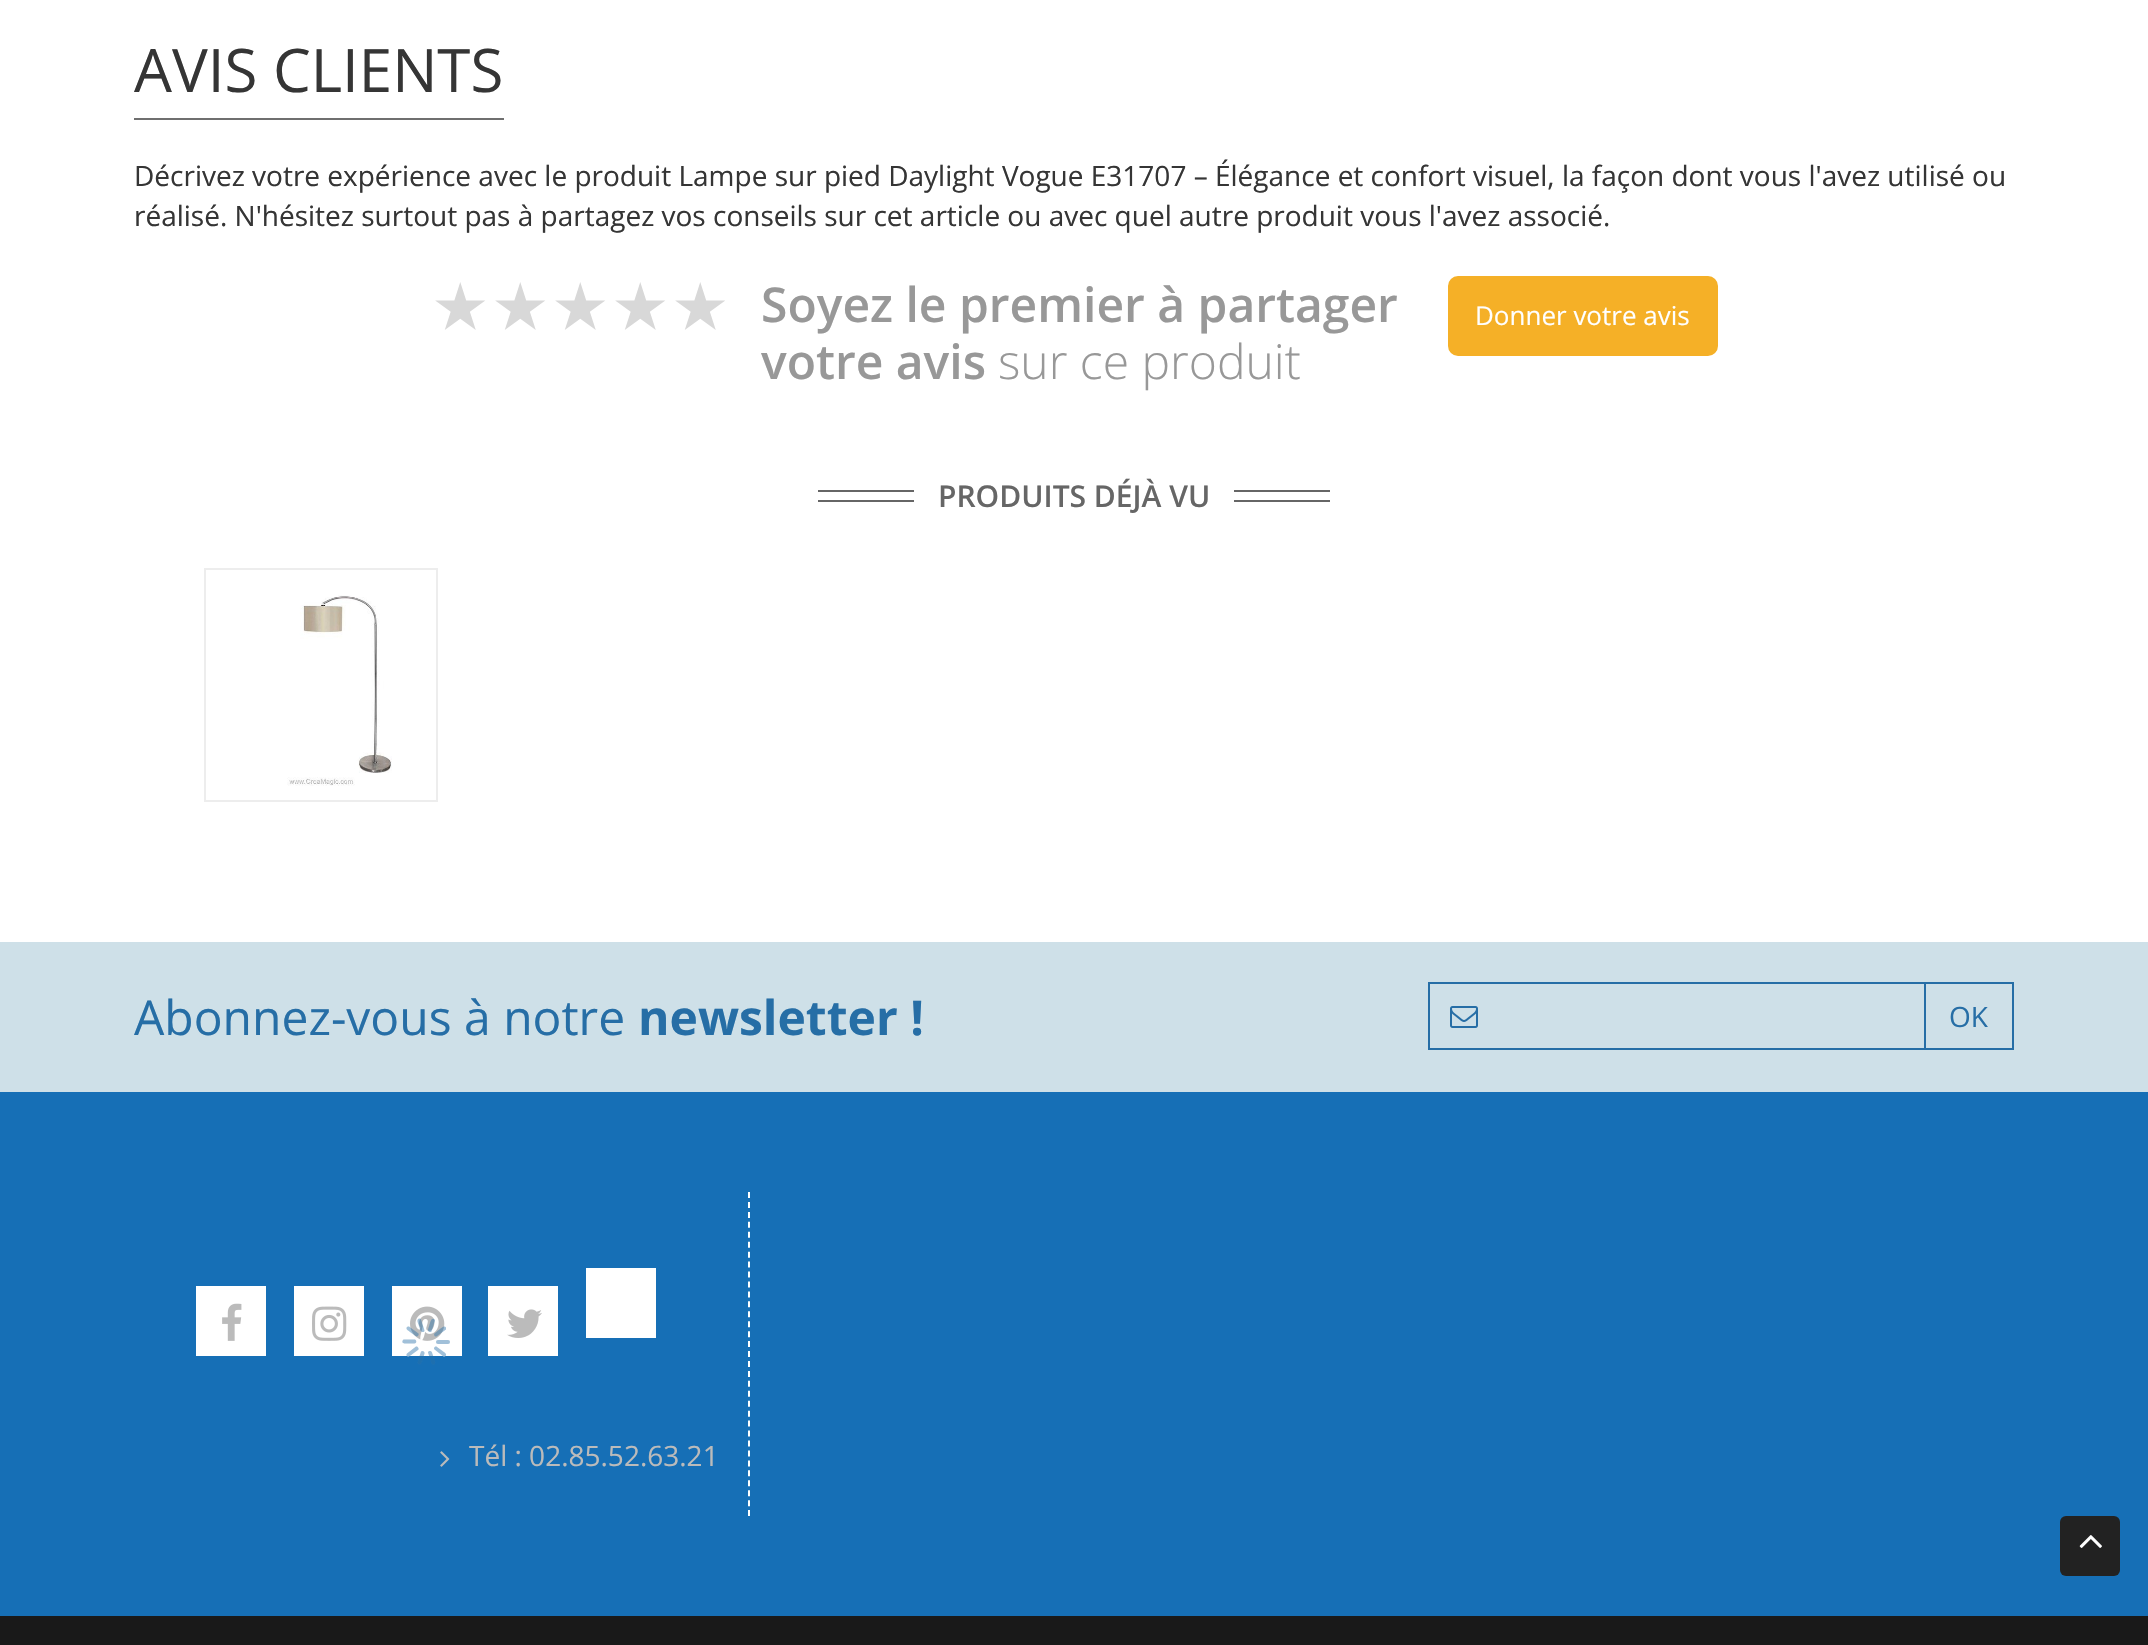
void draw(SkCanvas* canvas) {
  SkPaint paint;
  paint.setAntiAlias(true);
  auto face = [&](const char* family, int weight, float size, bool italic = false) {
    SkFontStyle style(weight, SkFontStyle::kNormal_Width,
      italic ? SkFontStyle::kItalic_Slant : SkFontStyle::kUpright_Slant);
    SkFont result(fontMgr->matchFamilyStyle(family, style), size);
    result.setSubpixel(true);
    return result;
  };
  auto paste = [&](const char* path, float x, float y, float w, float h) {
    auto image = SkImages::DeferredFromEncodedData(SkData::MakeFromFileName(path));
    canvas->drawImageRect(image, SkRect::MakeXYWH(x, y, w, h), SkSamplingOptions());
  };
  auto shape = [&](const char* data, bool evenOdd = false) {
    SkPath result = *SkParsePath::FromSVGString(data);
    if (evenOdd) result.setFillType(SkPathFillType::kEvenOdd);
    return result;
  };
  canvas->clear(0xffffffff);
  paint.setColor(0xff6f6f6f);
  canvas->drawRect(SkRect::MakeXYWH(134, 118, 370, 2), paint);
  paste("img/1.png", 435, 282, 290, 48);
  paint.setColor(0xfff5b027);
  canvas->drawRoundRect(SkRect::MakeXYWH(1449, 277, 268, 78), 9, 9, paint);
  paint.setStroke(true);
  paint.setStrokeWidth(2);
  canvas->drawRoundRect(SkRect::MakeXYWH(1449, 277, 268, 78), 9, 9, paint);
  paint.setStroke(false);
  {
    const struct { float x, y, w, h; SkColor color; } items[] = {
      {818, 490, 96, 2, 0xff666666},
      {818, 500, 96, 2, 0xff666666},
      {1234, 490, 96, 2, 0xff666666},
      {1234, 500, 96, 2, 0xff666666},
    };
    for (auto [x, y, w, h, color] : items) {
      paint.setColor(color);
      canvas->drawRect(SkRect::MakeXYWH(x, y, w, h), paint);
    }
  }
  paint.setStroke(true);
  paint.setColor(0xffededed);
  canvas->drawRect(SkRect::MakeXYWH(205, 569, 232, 232), paint);
  paste("img/2.png", 287, 595, 105, 191);
  paint.setStroke(false);
  {
    const struct { float x, y, w, h; SkColor color; } items[] = {
      {0, 942, 2148, 150, 0xffcee0e8},
      {1428, 982, 498, 2, 0xff266ea6},
      {1428, 1048, 498, 2, 0xff266ea6},
      {1428, 982, 2, 68, 0xff266ea6},
    };
    for (auto [x, y, w, h, color] : items) {
      paint.setColor(color);
      canvas->drawRect(SkRect::MakeXYWH(x, y, w, h), paint);
    }
  }
  paste("img/3.png", 1450, 1006, 28, 22);
  paint.setStroke(true);
  canvas->drawRect(SkRect::MakeXYWH(1925, 983, 88, 66), paint);
  paint.setStroke(false);
  paint.setColor(0xff166fb6);
  canvas->drawRect(SkRect::MakeXYWH(0, 1092, 2148, 524), paint);
  paint.setStroke(true);
  paint.setColor(0xffffffff);
  paint.setPathEffect(SkDashPathEffect::Make({{6, 3.94f}}, 0));
  canvas->drawPath(shape("M749 1192V1516"), paint);
  paint.setPathEffect(nullptr);
  paint.setStroke(false);
  canvas->drawRect(SkRect::MakeXYWH(196, 1286, 70, 70), paint);
  paste("img/4.png", 222, 1303, 20, 38);
  canvas->drawRect(SkRect::MakeXYWH(294, 1286, 70, 70), paint);
  paste("img/5.png", 312, 1306, 35, 35);
  canvas->drawRect(SkRect::MakeXYWH(392, 1286, 70, 70), paint);
  paste("img/6.png", 410, 1306, 35, 35);
  canvas->drawRect(SkRect::MakeXYWH(488, 1286, 70, 70), paint);
  paste("img/7.png", 507, 1309, 35, 29);
  canvas->drawRect(SkRect::MakeXYWH(586, 1268, 70, 70), paint);
  paint.setColor(0x40266ea6);
  canvas->drawPath(shape("M415.5 1336L410 1332C409 1331 405 1329 407 1327C407.5 1326.5 408.5 1326.5 409 1326.5L418.5 1333.5C419.5 1335 417 1337.5 415.5 1336Z"), paint);
  canvas->drawPath(shape("M420.5 1330.5L418.5 1324.5C418 1323 416 1319 419.5 1318.5C420 1318.5 420.5 1319 421 1319.5L424.5 1330.5C424.5 1332.5 421.5 1332.5 420.5 1330.5ZM428 1329.5L430 1323C430.5 1321.5 431.5 1317.5 434 1319C434.5 1319 435 1320 435 1320.5L431.5 1331.5C430 1333 427.5 1331.5 428 1329.5Z"), paint);
  canvas->drawPath(shape("M435 1333L440 1329C441.5 1328 444.5 1325 446 1327.5C446 1328.5 446 1329 446 1329.5L436.5 1336.5C434.5 1337 433 1334 435 1333Z"), paint);
  paint.setColor(0xffc9dbe9);
  canvas->drawPath(shape("M437 1347L442.5 1351C444 1352 447.5 1354 445.5 1356C445 1356.5 444.5 1356.5 443.5 1356.5L434.5 1349.5C433 1348 435.5 1345.5 437 1347Z"), paint);
  paint.setColor(0x40266ea6);
  canvas->drawPath(shape("M432 1352.5L434 1358.5C434.5 1360 436.5 1364 433.5 1364.5C432.5 1364.5 432 1364 431.5 1363.5L428 1352.5C428 1350.5 431.5 1350.5 432 1352.5ZM424.5 1353.5L422.5 1360C422 1361.5 421 1365.5 418.5 1364C418 1364 417.5 1363 417.5 1362.5L421 1351.5C422.5 1350 425 1351.5 424.5 1353.5Z"), paint);
  paint.setColor(0xffc9dbe9);
  canvas->drawPath(shape("M418 1350L412.5 1354C411 1355 408 1358 406.5 1355.5C406.5 1354.5 406.5 1354 407 1353.5L416 1346.5C418 1346 419.5 1349 418 1350ZM414.5 1343.5H407.5C406 1343.5 401.5 1344 402.5 1341C402.5 1340.5 403 1340 403.5 1339.5H415C417 1340.5 416.5 1343.5 414.5 1343.5Z"), paint);
  canvas->drawRoundRect(SkRect::MakeXYWH(436, 1340, 14, 4), 2, 2, paint);
  paint.setColor(0x40266ea6);
  canvas->drawPath(shape("M437 1347L442.5 1351C444 1352 447.5 1354 445.5 1356C445 1356.5 444.5 1356.5 443.5 1356.5L434.5 1349.5C433 1348 435.5 1345.5 437 1347Z"), paint);
  canvas->drawPath(shape("M432 1352.5L434 1358.5C434.5 1360 436.5 1364 433.5 1364.5C432.5 1364.5 432 1364 431.5 1363.5L428 1352.5C428 1350.5 431.5 1350.5 432 1352.5ZM424.5 1353.5L422.5 1360C422 1361.5 421 1365.5 418.5 1364C418 1364 417.5 1363 417.5 1362.5L421 1351.5C422.5 1350 425 1351.5 424.5 1353.5Z"), paint);
  canvas->drawPath(shape("M418 1350L412.5 1354C411 1355 408 1358 406.5 1355.5C406.5 1354.5 406.5 1354 407 1353.5L416 1346.5C418 1346 419.5 1349 418 1350ZM414.5 1343.5H407.5C406 1343.5 401.5 1344 402.5 1341C402.5 1340.5 403 1340 403.5 1339.5H415C417 1340.5 416.5 1343.5 414.5 1343.5ZM415.5 1336L410 1332C409 1331 405 1329 407 1327C407.5 1326.5 408.5 1326.5 409 1326.5L418.5 1333.5C419.5 1335 417 1337.5 415.5 1336Z"), paint);
  canvas->drawPath(shape("M420.5 1330.5L418.5 1324.5C418 1323 416 1319 419.5 1318.5C420 1318.5 420.5 1319 421 1319.5L424.5 1330.5C424.5 1332.5 421.5 1332.5 420.5 1330.5ZM428 1329.5L430 1323C430.5 1321.5 431.5 1317.5 434 1319C434.5 1319 435 1320 435 1320.5L431.5 1331.5C430 1333 427.5 1331.5 428 1329.5Z"), paint);
  canvas->drawPath(shape("M435 1333L440 1329C441.5 1328 444.5 1325 446 1327.5C446 1328.5 446 1329 446 1329.5L436.5 1336.5C434.5 1337 433 1334 435 1333Z"), paint);
  canvas->drawRoundRect(SkRect::MakeXYWH(436, 1340, 14, 4), 2, 2, paint);
  paste("img/8.png", 440, 1451, 10, 16);
  paint.setColor(0xff191919);
  canvas->drawRect(SkRect::MakeXYWH(0, 1616, 2148, 29), paint);
  paint.setColor(0xff222222);
  canvas->drawRoundRect(SkRect::MakeXYWH(2060, 1516, 60, 60), 6, 6, paint);
  paste("img/9.png", 2079, 1535, 23, 13);
  auto f0 = face("Open Sans", 400, 60);
  paint.setColor(0xff353535);
  canvas->drawString("AVIS CLIENTS", 134, 92, f0, paint);
  auto f1 = face("Open Sans", 400, 28);
  canvas->drawString("Décrivez votre expérience avec le produit Lampe sur pied Daylight Vogue E31707 – Élégance et confort visuel, la façon dont vous l'avez utilisé ou", 134, 186, f1, paint);
  canvas->drawString("réalisé. N'hésitez surtout pas à partagez vos conseils sur cet article ou avec quel autre produit vous l'avez associé.", 134, 226, f1, paint);
  auto f2 = face("Open Sans", 600, 48);
  paint.setColor(0xff989898);
  canvas->drawString("Soyez le premier à partager", 761, 322, f2, paint);
  canvas->drawString("votre avis", 761, 379, f2, paint);
  auto f3 = face("Open Sans", 300, 48);
  canvas->drawString("sur ce produit", 998, 379, f3, paint);
  auto f4 = face("Open Sans", 400, 26);
  paint.setColor(0xffffffff);
  canvas->drawString("Donner votre avis", 1475, 325, f4, paint);
  auto f5 = face("Open Sans", 600, 30);
  paint.setColor(0xff666666);
  canvas->drawString("PRODUITS DÉJÀ VU", 938, 507, f5, paint);
  auto f6 = face("Open Sans", 400, 48);
  paint.setColor(0xff266ea6);
  canvas->drawString("Abonnez-vous à notre", 134, 1035, f6, paint);
  auto f7 = face("Open Sans", 700, 48);
  canvas->drawString("newsletter !", 638, 1035, f7, paint);
  canvas->drawString("OK", 1949, 1027, f1, paint);
  paint.setColor(0xffbbbbbb);
  canvas->drawString("Tél : 02.85.52.63.21", 469, 1466, f1, paint);
}
